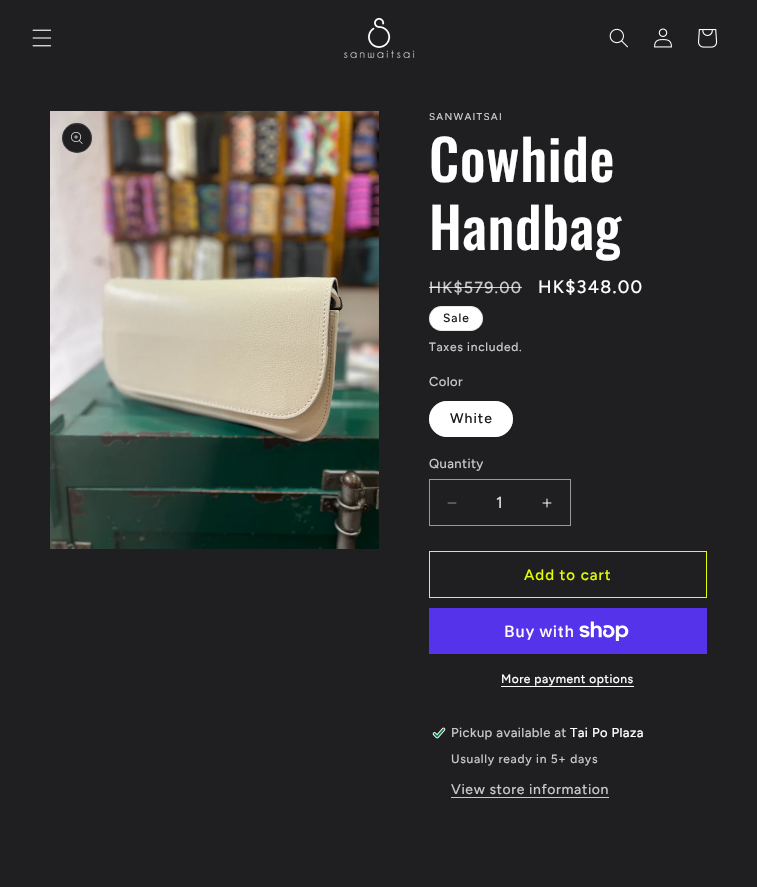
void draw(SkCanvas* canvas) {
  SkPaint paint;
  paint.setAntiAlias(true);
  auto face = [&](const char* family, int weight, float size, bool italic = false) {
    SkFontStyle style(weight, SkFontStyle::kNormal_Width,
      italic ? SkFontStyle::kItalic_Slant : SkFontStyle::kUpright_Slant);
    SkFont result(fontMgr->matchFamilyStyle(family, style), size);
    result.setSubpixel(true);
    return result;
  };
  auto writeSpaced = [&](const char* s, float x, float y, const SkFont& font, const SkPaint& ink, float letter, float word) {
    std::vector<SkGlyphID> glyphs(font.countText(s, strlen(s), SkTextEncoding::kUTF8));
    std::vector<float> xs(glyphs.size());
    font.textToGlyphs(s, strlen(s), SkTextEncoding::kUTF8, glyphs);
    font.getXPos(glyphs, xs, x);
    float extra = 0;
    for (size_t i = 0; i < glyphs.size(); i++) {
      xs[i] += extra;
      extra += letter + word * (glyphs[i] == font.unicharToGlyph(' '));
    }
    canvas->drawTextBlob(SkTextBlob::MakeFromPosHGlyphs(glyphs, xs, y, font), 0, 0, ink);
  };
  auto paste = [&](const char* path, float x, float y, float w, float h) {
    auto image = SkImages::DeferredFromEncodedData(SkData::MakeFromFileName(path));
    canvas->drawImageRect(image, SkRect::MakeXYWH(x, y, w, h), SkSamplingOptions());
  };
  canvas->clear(0xff1f1f21);
  paste("img/1.png", 32, 29, 20, 18);
  paste("img/2.png", 343, 18, 72, 40);
  paste("img/3.png", 609, 28, 19, 20);
  paste("img/4.png", 654, 28, 18, 20);
  paste("img/5.png", 698, 29, 20, 19);
  paste("img/6.png", 50, 111, 329, 438);
  paint.setColor(0xff1f1f21);
  canvas->drawCircle(77, 138, 15, paint);
  paint.setStroke(true);
  paint.setStrokeWidth(1);
  paint.setColor(0x1affffff);
  canvas->drawCircle(77, 138, 14.5f, paint);
  paste("img/7.png", 71, 132, 12, 12);
  paint.setStroke(false);
  paint.setColor(0xffffffff);
  canvas->drawRoundRect(SkRect::MakeXYWH(429, 306, 54, 25), 12.5f, 12.5f, paint);
  paint.setStroke(true);
  paint.setColor(0x1a1f1f21);
  canvas->drawRoundRect(SkRect::MakeXYWH(429.5f, 306.5f, 53, 24), 12, 12, paint);
  paint.setStroke(false);
  paint.setColor(0xffffffff);
  canvas->drawRoundRect(SkRect::MakeXYWH(429, 401, 84, 36), 18, 18, paint);
  paint.setStroke(true);
  paint.setColor(0x8cffffff);
  canvas->drawRoundRect(SkRect::MakeXYWH(429.5f, 401.5f, 83, 35), 17.5f, 17.5f, paint);
  paste("img/8.png", 447, 502, 10, 2);
  paste("img/9.png", 542, 498, 10, 10);
  paint.setColor(0xff9a9a9b);
  canvas->drawRect(SkRect::MakeXYWH(429.5f, 479.5f, 141, 46), paint);
  paint.setColor(0xffe3fc02);
  canvas->drawRect(SkRect::MakeXYWH(429.5f, 551.5f, 277, 46), paint);
  paint.setStroke(false);
  paint.setColor(0xff5433eb);
  canvas->drawRect(SkRect::MakeXYWH(429, 608, 278, 46), paint);
  paste("img/10.png", 579, 621, 50, 20);
  paint.setColor(0xffffffff);
  canvas->drawRect(SkRect::MakeXYWH(501, 686, 133, 1), paint);
  paste("img/11.png", 432, 727, 14, 12);
  paint.setColor(0xffc7c7c8);
  canvas->drawRect(SkRect::MakeXYWH(451, 797, 158, 1), paint);
  auto f0 = face("Figtree", 500, 10);
  writeSpaced("SANWAITSAI", 429, 120, f0, paint, 1.25f, 0);
  auto f1 = face("Oswald", 500, 56);
  paint.setColor(0xffffffff);
  writeSpaced("Cowhide", 429, 182, f1, paint, 0.75f, 0);
  writeSpaced("Handbag", 429, 250, f1, paint, 0.75f, 0);
  auto f2 = face("Figtree", 500, 16);
  paint.setColor(0xffc7c7c8);
  writeSpaced("HK$579.00", 429, 293, f2, paint, 1.25f, 0);
  paint.setColor(0xbfffffff);
  canvas->drawRect(SkRect::MakeXYWH(429, 287, 93, 1), paint);
  auto f3 = face("Figtree", 500, 18);
  paint.setColor(0xffffffff);
  writeSpaced("HK$348.00", 538, 293, f3, paint, 1.25f, 0);
  auto f4 = face("Figtree", 500, 12);
  paint.setColor(0xff1f1f21);
  writeSpaced("Sale", 443, 322, f4, paint, 1, 0);
  paint.setColor(0xffc7c7c8);
  writeSpaced("Taxes included.", 429, 351, f4, paint, 0.7f, 0);
  auto f5 = face("Figtree", 500, 13);
  writeSpaced("Color", 429, 386, f5, paint, 0.4f, 0);
  auto f6 = face("Figtree", 500, 14);
  paint.setColor(0xff1f1f21);
  writeSpaced("White", 450, 423, f6, paint, 1, 0);
  paint.setColor(0xffc7c7c8);
  writeSpaced("Quantity", 429, 468, f5, paint, 0.4f, 0);
  paint.setColor(0xffddddde);
  canvas->drawString("1", 496, 508, f2, paint);
  auto f7 = face("Figtree", 500, 15);
  paint.setColor(0xffe3fc02);
  writeSpaced("Add to cart", 524, 580, f7, paint, 1, 0);
  auto f8 = face("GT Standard", 500, 16);
  paint.setColor(0xffffffff);
  writeSpaced("Buy with", 504, 637, f8, paint, 0.6f, 0);
  writeSpaced("More payment options", 501, 683, f4, paint, 0.5f, 0);
  paint.setColor(0xffc7c7c8);
  writeSpaced("Pickup available at", 451, 737, f5, paint, 0.4f, 0);
  paint.setColor(0xffffffff);
  writeSpaced("Tai Po Plaza", 570, 737, f5, paint, 0.4f, 0);
  paint.setColor(0xffc7c7c8);
  writeSpaced("Usually ready in 5+ days", 451, 763, f4, paint, 0.7f, 0);
  writeSpaced("View store information", 451, 794, f6, paint, 0.6f, 0);
}
